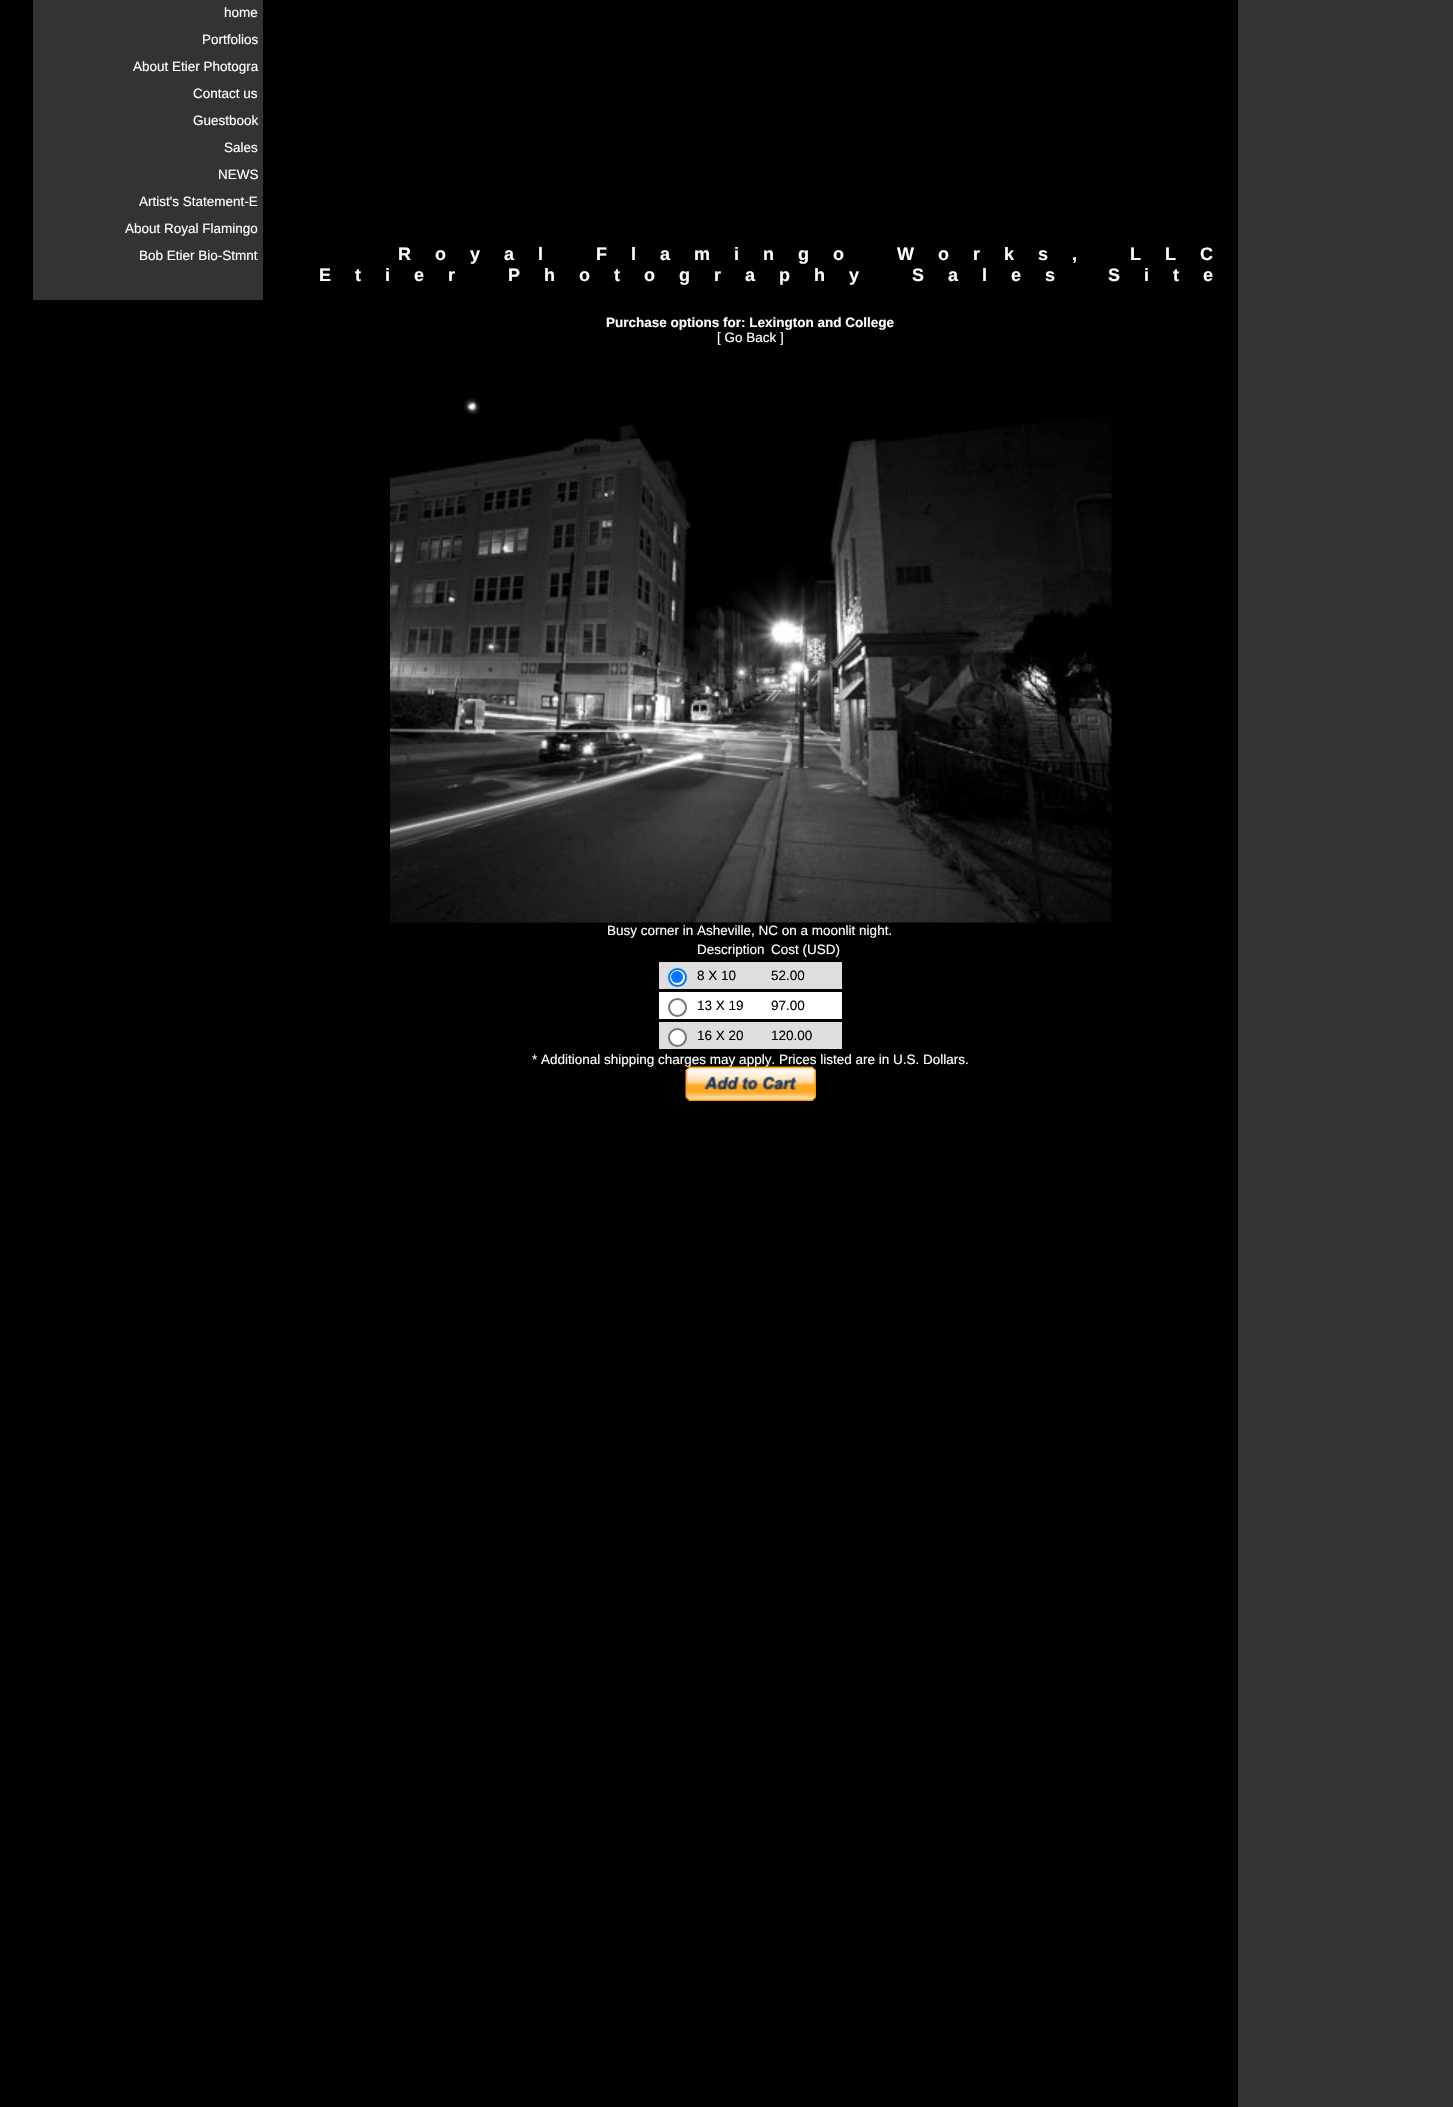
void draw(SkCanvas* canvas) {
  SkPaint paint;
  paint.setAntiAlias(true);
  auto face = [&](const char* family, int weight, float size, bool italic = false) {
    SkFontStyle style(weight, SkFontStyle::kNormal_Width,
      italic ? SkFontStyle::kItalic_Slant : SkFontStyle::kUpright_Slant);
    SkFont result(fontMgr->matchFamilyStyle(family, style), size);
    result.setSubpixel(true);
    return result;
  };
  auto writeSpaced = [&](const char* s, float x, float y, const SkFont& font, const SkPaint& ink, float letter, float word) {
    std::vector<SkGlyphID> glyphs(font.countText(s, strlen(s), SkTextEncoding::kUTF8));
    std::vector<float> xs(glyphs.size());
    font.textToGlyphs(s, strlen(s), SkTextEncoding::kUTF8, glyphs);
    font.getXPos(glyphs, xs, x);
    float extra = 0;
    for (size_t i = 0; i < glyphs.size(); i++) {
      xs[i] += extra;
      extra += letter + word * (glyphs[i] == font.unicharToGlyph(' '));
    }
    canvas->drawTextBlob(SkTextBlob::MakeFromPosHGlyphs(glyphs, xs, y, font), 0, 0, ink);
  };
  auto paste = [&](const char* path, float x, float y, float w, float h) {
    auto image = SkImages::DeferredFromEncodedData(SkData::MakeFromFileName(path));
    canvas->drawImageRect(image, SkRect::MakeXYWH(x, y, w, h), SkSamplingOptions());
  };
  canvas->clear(0xff333333);
  paint.setColor(0xff000000);
  canvas->drawRect(SkRect::MakeXYWH(0, 0, 1238, 2107), paint);
  paint.setColor(0xff333333);
  canvas->drawRect(SkRect::MakeXYWH(33, 0, 230, 300), paint);
  paste("img/1.png", 390, 398, 722, 525);
  paint.setColor(0xffdedede);
  canvas->drawRect(SkRect::MakeXYWH(659, 962, 183, 27), paint);
  paint.setColor(0xffffffff);
  canvas->drawCircle(677.5f, 977.5f, 8.5f, paint);
  paint.setStroke(true);
  paint.setStrokeWidth(2);
  paint.setColor(0xff0075ff);
  canvas->drawCircle(677.5f, 977.5f, 8.5f, paint);
  paint.setStroke(false);
  canvas->drawCircle(677, 977, 6, paint);
  paint.setColor(0xffffffff);
  canvas->drawRect(SkRect::MakeXYWH(659, 992, 183, 27), paint);
  paint.setStroke(true);
  paint.setColor(0xff767676);
  canvas->drawCircle(677.5f, 1007.5f, 8.5f, paint);
  paint.setStroke(false);
  paint.setColor(0xffdedede);
  canvas->drawRect(SkRect::MakeXYWH(659, 1022, 183, 27), paint);
  paint.setColor(0xffffffff);
  canvas->drawCircle(677.5f, 1037.5f, 8.5f, paint);
  paint.setStroke(true);
  paint.setColor(0xff767676);
  canvas->drawCircle(677.5f, 1037.5f, 8.5f, paint);
  auto f0 = face("Liberation Sans", 400, 13.5f);
  paint.setStroke(false);
  paint.setColor(0xffffffff);
  {
    const struct { const char* s; float x, y; } items[] = {
      {"home", 224, 17},
      {"Portfolios", 202, 44},
      {"About Etier Photogra", 133, 71},
      {"Contact us", 193, 98},
      {"Guestbook", 193, 125},
      {"Sales", 224, 152},
      {"NEWS", 218, 179},
      {"Artist's Statement-E", 139, 206},
      {"About Royal Flamingo", 125, 233},
      {"Bob Etier Bio-Stmnt", 139, 260},
    };
    for (auto [s, x, y] : items) {
      canvas->drawString(s, x, y, f0, paint);
    }
  }
  auto f1 = face("Liberation Sans", 700, 18);
  writeSpaced("Royal Flamingo Works, LLC", 398, 260, f1, paint, 24, 0);
  writeSpaced("Etier Photography Sales Site", 319, 281, f1, paint, 24, 0);
  auto f2 = face("Liberation Sans", 700, 13.5f);
  canvas->drawString("Purchase options for: Lexington and College", 606, 327, f2, paint);
  {
    const struct { const char* s; float x, y; } items[] = {
      {"[ Go Back ]", 717, 342},
      {"Busy corner in Asheville, NC on a moonlit night.", 607, 935},
      {"Description", 697, 954},
      {"Cost (USD)", 771, 954},
    };
    for (auto [s, x, y] : items) {
      canvas->drawString(s, x, y, f0, paint);
    }
  }
  paint.setColor(0xff000000);
  {
    const struct { const char* s; float x, y; } items[] = {
      {"8 X 10", 697, 980},
      {"52.00", 771, 980},
      {"13 X 19", 697, 1010},
      {"97.00", 771, 1010},
      {"16 X 20", 697, 1040},
      {"120.00", 771, 1040},
    };
    for (auto [s, x, y] : items) {
      canvas->drawString(s, x, y, f0, paint);
    }
  }
  paint.setColor(0xffffffff);
  canvas->drawString("* Additional shipping charges may apply. Prices listed are in U.S. Dollars.", 532, 1064, f0, paint);
  paste("img/2.png", 685, 1066, 131, 35);
}
